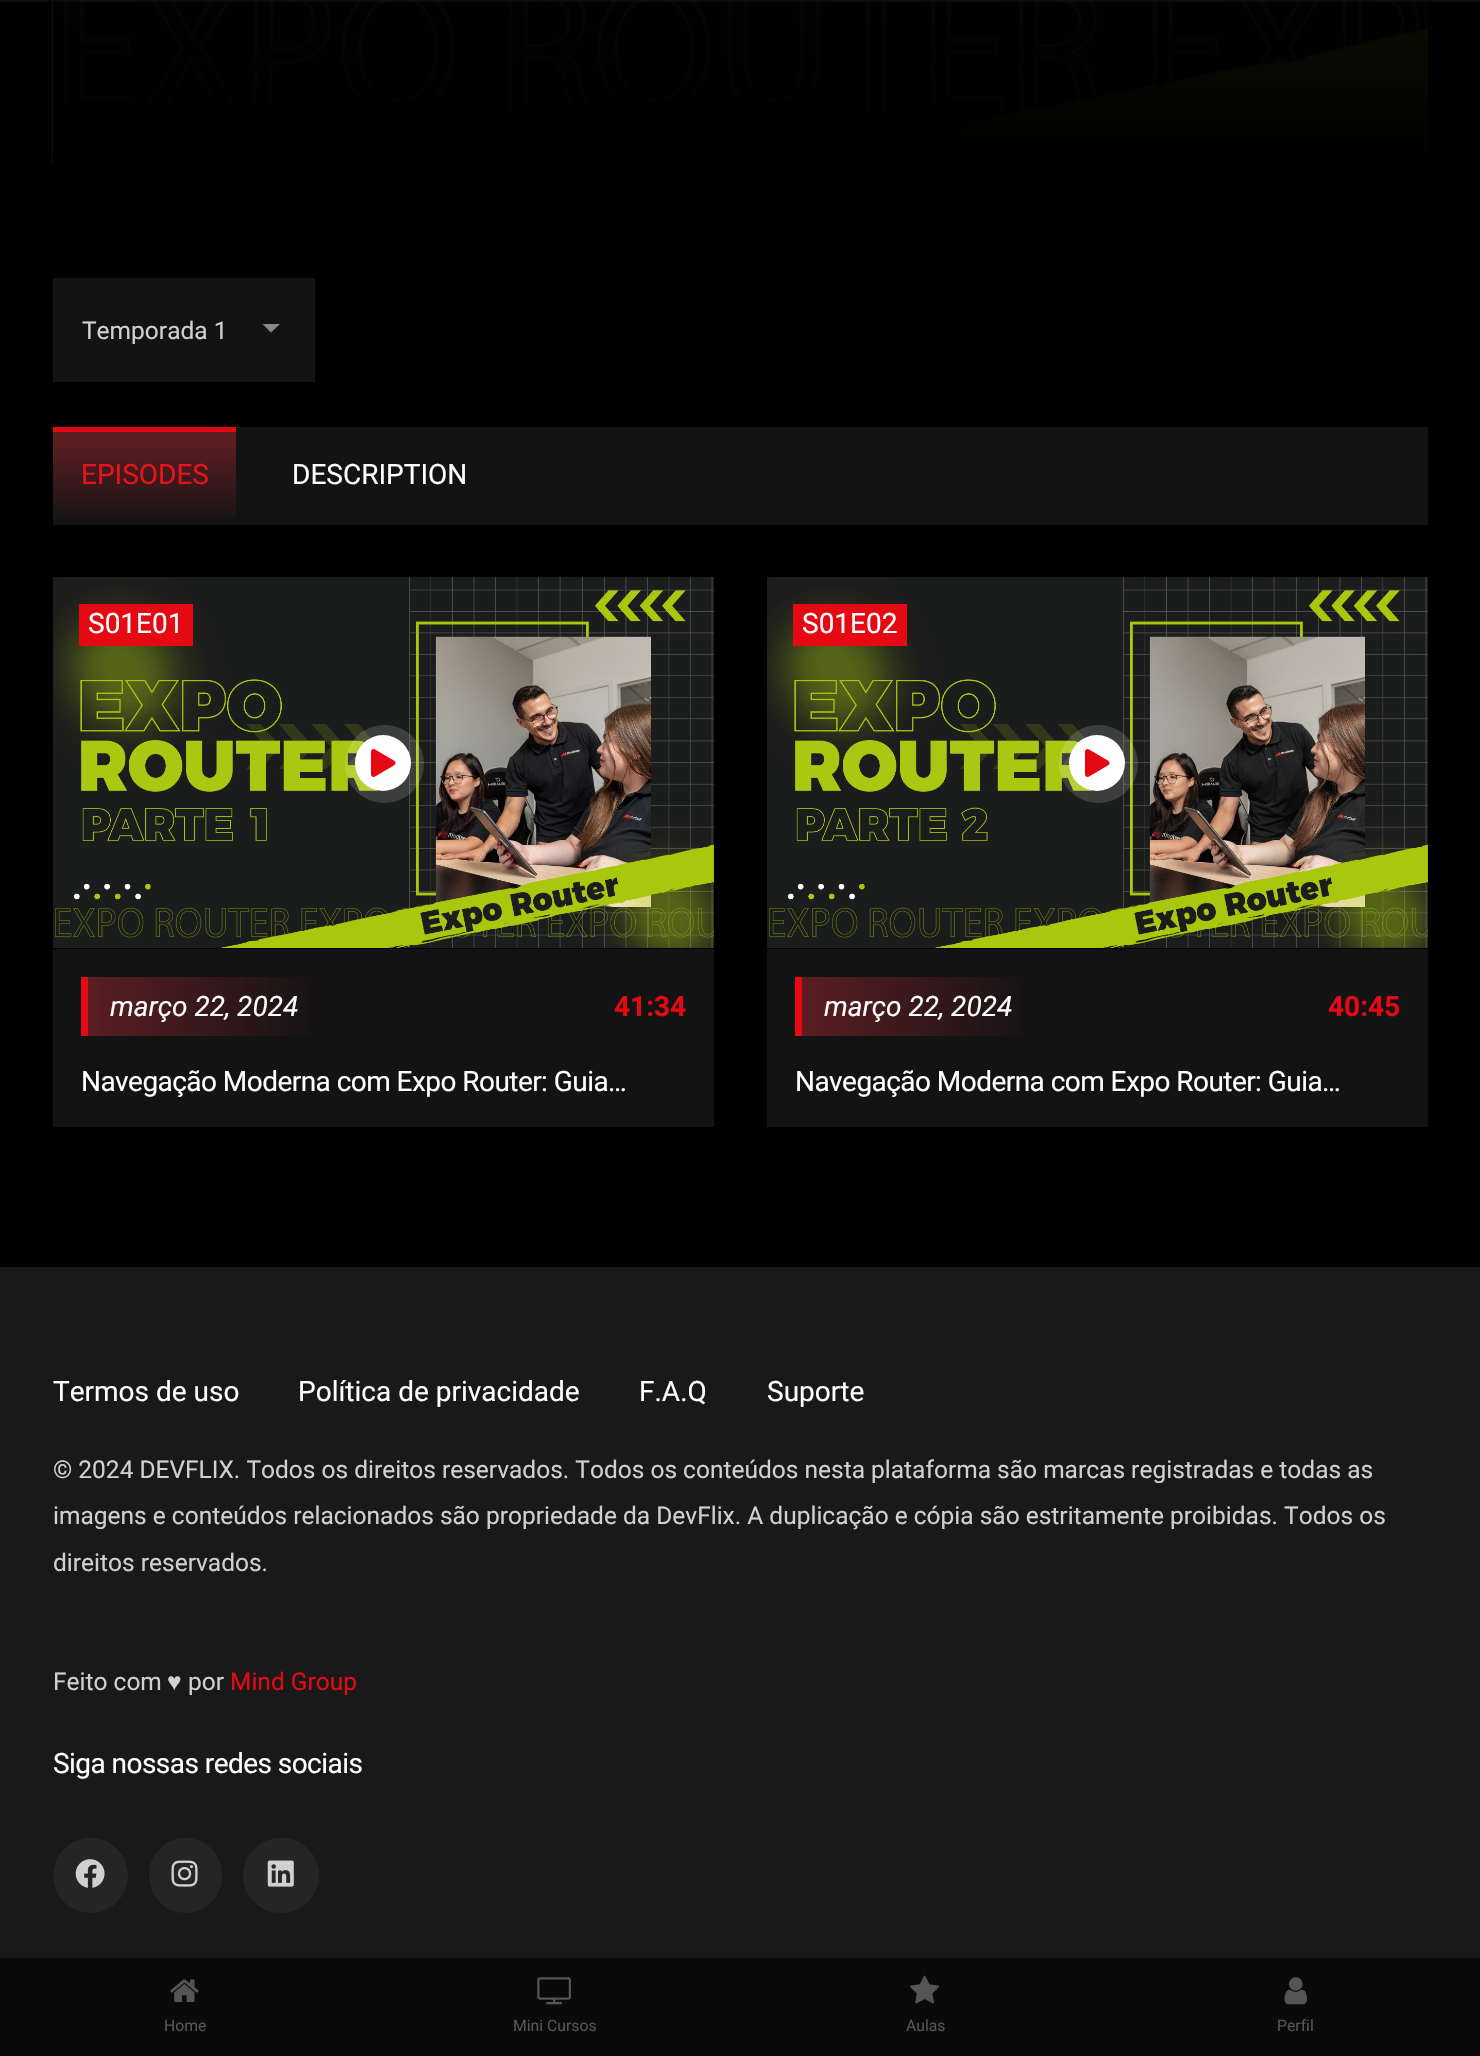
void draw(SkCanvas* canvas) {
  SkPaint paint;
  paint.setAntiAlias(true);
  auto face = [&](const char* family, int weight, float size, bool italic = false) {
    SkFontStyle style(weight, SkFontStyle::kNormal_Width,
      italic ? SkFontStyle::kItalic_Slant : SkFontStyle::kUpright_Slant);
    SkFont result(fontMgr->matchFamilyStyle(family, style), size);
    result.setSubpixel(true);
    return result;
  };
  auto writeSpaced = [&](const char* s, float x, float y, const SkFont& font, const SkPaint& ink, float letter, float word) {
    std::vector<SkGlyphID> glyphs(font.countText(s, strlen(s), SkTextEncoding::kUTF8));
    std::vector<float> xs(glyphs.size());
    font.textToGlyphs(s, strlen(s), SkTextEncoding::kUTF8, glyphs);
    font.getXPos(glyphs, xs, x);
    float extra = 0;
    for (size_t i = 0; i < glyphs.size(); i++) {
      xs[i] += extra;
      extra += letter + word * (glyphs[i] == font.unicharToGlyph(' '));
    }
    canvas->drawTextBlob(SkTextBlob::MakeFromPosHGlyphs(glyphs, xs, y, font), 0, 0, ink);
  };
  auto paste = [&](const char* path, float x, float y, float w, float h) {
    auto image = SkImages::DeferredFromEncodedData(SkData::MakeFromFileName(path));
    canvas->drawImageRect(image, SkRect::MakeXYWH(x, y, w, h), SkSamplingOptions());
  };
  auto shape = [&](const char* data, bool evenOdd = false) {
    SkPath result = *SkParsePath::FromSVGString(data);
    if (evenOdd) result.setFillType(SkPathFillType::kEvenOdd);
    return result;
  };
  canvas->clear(0xff000000);
  paste("img/1.png", 52, 0, 1376, 163);
  {
    const SkColor colors[] = {0x00000000, 0xcc000000, 0xff000000};
    const float stops[] = {0, 0.7f, 1};
    const SkPoint ends[] = {{740, -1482}, {740, 163}};
    paint.setShader(SkGradientShader::MakeLinear(ends, colors, stops, 3, SkTileMode::kClamp));
    paint.setAlpha(255);
  }
  canvas->drawRect(SkRect::MakeXYWH(53, 0, 1375, 163), paint);
  paint.setShader(nullptr);
  paint.setColor(0x80141414);
  canvas->drawRect(SkRect::MakeXYWH(0, 0, 1480, 2), paint);
  paint.setColor(0xff141314);
  canvas->drawRect(SkRect::MakeXYWH(53, 278, 262, 104), paint);
  paint.setColor(0xff888888);
  canvas->drawPath(shape("M262.5 324H280L271 332.5Z"), paint);
  paint.setColor(0xff141314);
  canvas->drawRect(SkRect::MakeXYWH(53, 427, 1375, 98), paint);
  paint.setColor(0xffe50914);
  canvas->drawRect(SkRect::MakeXYWH(53, 427, 183, 5), paint);
  paste("img/2.png", 53, 577, 661, 371);
  canvas->drawRect(SkRect::MakeXYWH(79, 604, 114, 42), paint);
  paint.setColor(0x26ffffff);
  canvas->drawRoundRect(SkRect::MakeXYWH(345, 725, 79, 78), 39, 39, paint);
  paint.setColor(0xffffffff);
  canvas->drawCircle(383, 763, 28, paint);
  paste("img/3.png", 371, 749, 25, 28);
  paint.setColor(0xff141314);
  canvas->drawRect(SkRect::MakeXYWH(53, 949, 661, 178), paint);
  {
    const SkColor colors[] = {0xff141314, 0xff5b1e22};
    const float stops[] = {0, 1};
    const SkPoint ends[] = {{320, 1006}, {88, 1006}};
    paint.setShader(SkGradientShader::MakeLinear(ends, colors, stops, 2, SkTileMode::kClamp));
    paint.setAlpha(255);
  }
  canvas->drawRect(SkRect::MakeXYWH(88, 977, 224, 59), paint);
  paint.setShader(nullptr);
  paint.setColor(0xffe50914);
  canvas->drawRect(SkRect::MakeXYWH(81, 977, 7, 59), paint);
  paste("img/4.png", 767, 577, 661, 371);
  canvas->drawRect(SkRect::MakeXYWH(793, 604, 114, 42), paint);
  paint.setColor(0x26ffffff);
  canvas->drawRoundRect(SkRect::MakeXYWH(1059, 725, 79, 78), 39, 39, paint);
  paint.setColor(0xffffffff);
  canvas->drawCircle(1097, 763, 28, paint);
  paste("img/3.png", 1085, 749, 25, 28);
  paint.setColor(0xff141314);
  canvas->drawRect(SkRect::MakeXYWH(767, 949, 661, 178), paint);
  {
    const SkColor colors[] = {0xff141314, 0xff5b1e22};
    const float stops[] = {0, 1};
    const SkPoint ends[] = {{1034, 1006}, {802, 1006}};
    paint.setShader(SkGradientShader::MakeLinear(ends, colors, stops, 2, SkTileMode::kClamp));
    paint.setAlpha(255);
  }
  canvas->drawRect(SkRect::MakeXYWH(802, 977, 224, 59), paint);
  paint.setShader(nullptr);
  paint.setColor(0xffe50914);
  canvas->drawRect(SkRect::MakeXYWH(795, 977, 7, 59), paint);
  paint.setColor(0xff191919);
  canvas->drawRect(SkRect::MakeXYWH(0, 1267, 1480, 691), paint);
  paint.setColor(0xff252525);
  canvas->drawCircle(90.5f, 1875.5f, 37.5f, paint);
  paste("img/5.png", 75, 1859, 30, 29);
  canvas->drawRoundRect(SkRect::MakeXYWH(149, 1838, 73, 75), 36.5f, 36.5f, paint);
  paste("img/6.png", 171, 1860, 27, 27);
  canvas->drawRoundRect(SkRect::MakeXYWH(243, 1838, 76, 75), 37.5f, 37.5f, paint);
  paste("img/7.png", 267, 1860, 27, 27);
  paint.setColor(0xff0a0a0a);
  canvas->drawRect(SkRect::MakeXYWH(0, 1958, 1480, 98), paint);
  paste("img/8.png", 170, 1979, 29, 23);
  paste("img/9.png", 537, 1977, 34, 28);
  paste("img/10.png", 910, 1975, 30, 29);
  paste("img/11.png", 1284, 1977, 23, 28);
  auto f0 = face("Roboto", 400, 24.5f);
  paint.setColor(0xffd1d0cf);
  canvas->drawString("Temporada 1", 82, 339, f0, paint);
  auto f1 = face("Roboto", 400, 28);
  paint.setColor(0xffe50914);
  canvas->drawString("EPISODES", 81, 484, f1, paint);
  {
    const SkColor colors[] = {0x00ff3741, 0x4dff3741};
    const float stops[] = {0, 0.85f};
    const SkPoint ends[] = {{144, 525}, {144, 427}};
    paint.setShader(SkGradientShader::MakeLinear(ends, colors, stops, 2, SkTileMode::kClamp));
    paint.setAlpha(255);
  }
  canvas->drawRect(SkRect::MakeXYWH(53, 432, 183, 87), paint);
  paint.setShader(nullptr);
  paint.setColor(0xffffffff);
  canvas->drawString("DESCRIPTION", 292, 484, f1, paint);
  canvas->drawString("S01E01", 88, 633, f1, paint);
  auto f2 = face("Roboto", 400, 28, true);
  canvas->drawString("março 22, 2024", 110, 1016, f2, paint);
  auto f3 = face("Roboto", 700, 28);
  paint.setColor(0xffe50914);
  canvas->drawString("41:34", 614, 1016, f3, paint);
  paint.setColor(0xffffffff);
  writeSpaced("Navegação Moderna com Expo Router: Guia…", 81, 1091, f1, paint, -0.55f, 0);
  canvas->drawString("S01E02", 802, 633, f1, paint);
  canvas->drawString("março 22, 2024", 824, 1016, f2, paint);
  paint.setColor(0xffe50914);
  canvas->drawString("40:45", 1328, 1016, f3, paint);
  paint.setColor(0xffffffff);
  writeSpaced("Navegação Moderna com Expo Router: Guia…", 795, 1091, f1, paint, -0.55f, 0);
  {
    const struct { const char* s; float x, y; } items[] = {
      {"Termos de uso", 53, 1401},
      {"Política de privacidade", 298, 1401},
      {"F.A.Q", 639, 1401},
      {"Suporte", 767, 1401},
    };
    for (auto [s, x, y] : items) {
      canvas->drawString(s, x, y, f1, paint);
    }
  }
  paint.setColor(0xffd1d0cf);
  {
    const struct { const char* s; float x, y; } items[] = {
      {"© 2024 DEVFLIX. Todos os direitos reservados. Todos os conteúdos nesta plataforma são marcas registradas e todas as", 53, 1478},
      {"imagens e conteúdos relacionados são propriedade da DevFlix. A duplicação e cópia são estritamente proibidas. Todos os", 53, 1524},
      {"direitos reservados.", 53, 1571},
      {"Feito com", 53, 1690},
    };
    for (auto [s, x, y] : items) {
      canvas->drawString(s, x, y, f0, paint);
    }
  }
  auto f4 = face("Liberation Sans", 400, 24.5f);
  canvas->drawString("♥", 167, 1690, f4, paint);
  canvas->drawString("por", 188, 1690, f0, paint);
  paint.setColor(0xffe50914);
  canvas->drawString("Mind Group", 230, 1690, f0, paint);
  paint.setColor(0xffffffff);
  writeSpaced("Siga nossas redes sociais", 53, 1773, f1, paint, -0.55f, 0);
  auto f5 = face("Roboto", 400, 15.75f);
  paint.setColor(0xff555555);
  {
    const struct { const char* s; float x, y; } items[] = {
      {"Home", 164, 2031},
      {"Mini Cursos", 513, 2031},
      {"Aulas", 906, 2031},
      {"Perfil", 1277, 2031},
    };
    for (auto [s, x, y] : items) {
      canvas->drawString(s, x, y, f5, paint);
    }
  }
}
